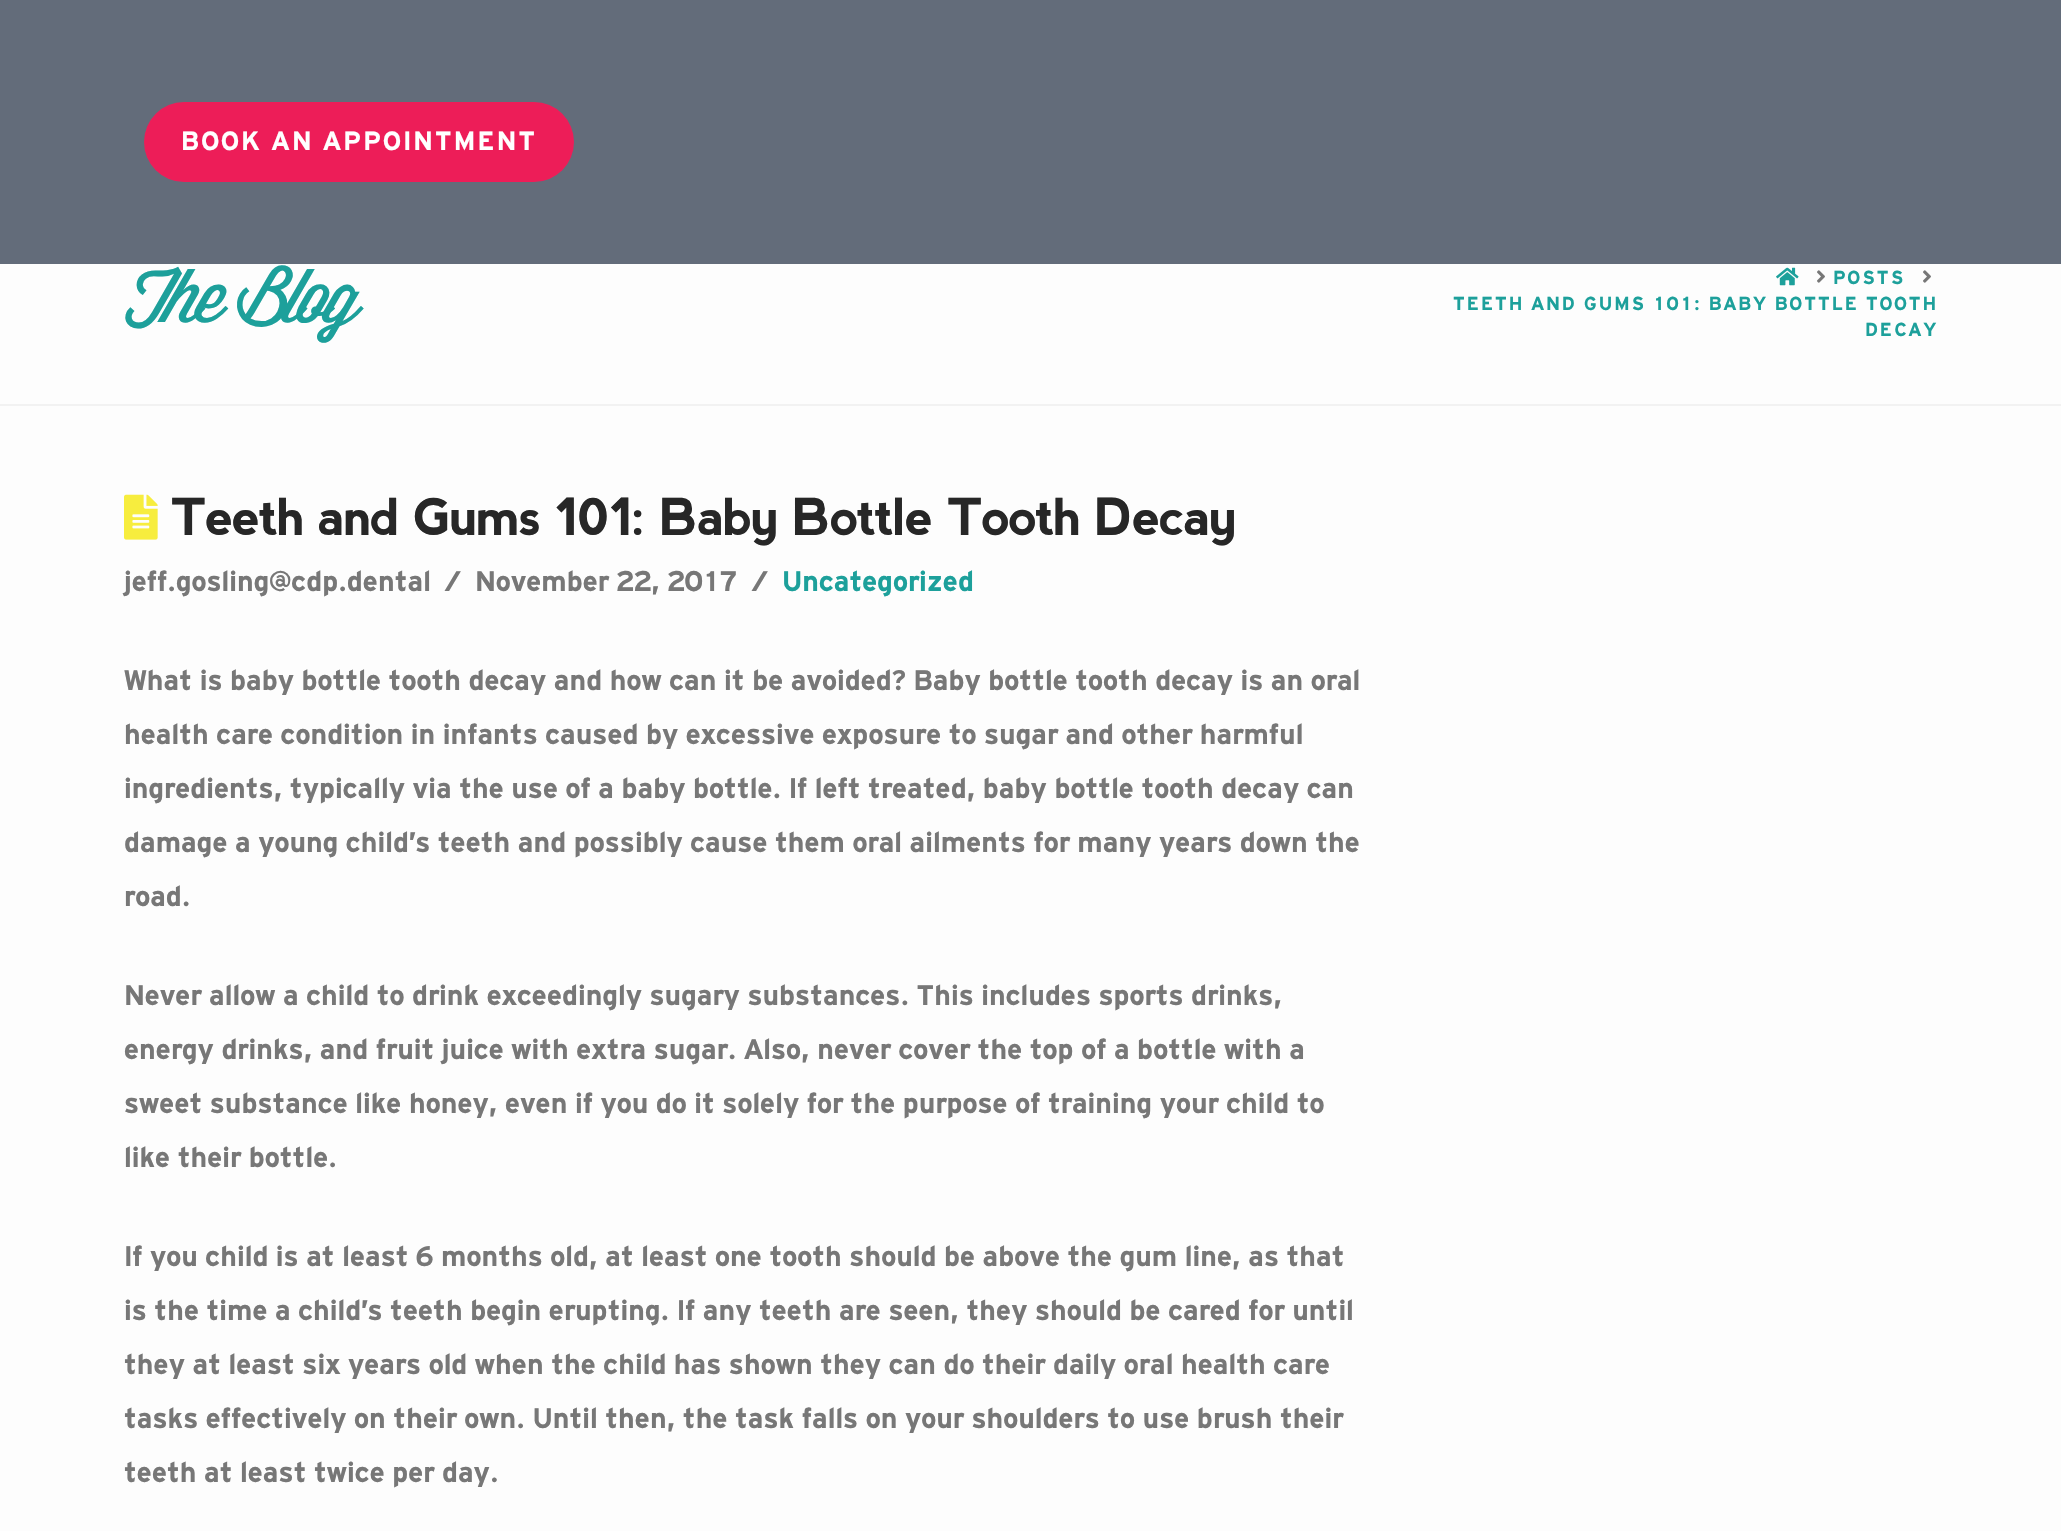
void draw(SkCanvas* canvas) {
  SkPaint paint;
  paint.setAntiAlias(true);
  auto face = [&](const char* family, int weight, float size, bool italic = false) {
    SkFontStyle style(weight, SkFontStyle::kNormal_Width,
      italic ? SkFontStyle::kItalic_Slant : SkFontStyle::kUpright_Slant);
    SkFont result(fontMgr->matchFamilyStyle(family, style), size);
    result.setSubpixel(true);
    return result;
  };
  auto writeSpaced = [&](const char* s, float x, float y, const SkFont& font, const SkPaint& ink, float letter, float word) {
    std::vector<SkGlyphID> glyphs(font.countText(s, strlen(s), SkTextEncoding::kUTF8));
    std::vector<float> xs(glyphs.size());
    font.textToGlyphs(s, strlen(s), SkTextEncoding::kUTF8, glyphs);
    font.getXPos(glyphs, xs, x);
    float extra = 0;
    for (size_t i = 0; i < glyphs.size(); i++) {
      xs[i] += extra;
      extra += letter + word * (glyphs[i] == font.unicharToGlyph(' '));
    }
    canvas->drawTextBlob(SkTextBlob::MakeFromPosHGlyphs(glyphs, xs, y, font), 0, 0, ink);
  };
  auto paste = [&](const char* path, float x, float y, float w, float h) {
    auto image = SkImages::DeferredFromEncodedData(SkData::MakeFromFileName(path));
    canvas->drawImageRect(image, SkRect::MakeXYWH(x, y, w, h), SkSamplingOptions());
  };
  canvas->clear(0xfffdfdfd);
  paint.setColor(0xff636c7a);
  canvas->drawRect(SkRect::MakeXYWH(0, 0, 2061, 264), paint);
  paint.setColor(0xffed1d58);
  canvas->drawRoundRect(SkRect::MakeXYWH(144, 102, 430, 80), 40, 40, paint);
  paint.setColor(0xfff2f2f2);
  canvas->drawRect(SkRect::MakeXYWH(0, 404, 2061, 2), paint);
  paste("img/1.png", 1776, 267, 23, 19);
  paste("img/2.png", 1817, 270, 8, 13);
  paste("img/2.png", 1923, 270, 8, 13);
  paste("img/3.png", 124, 494, 34, 46);
  auto f0 = face("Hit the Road", 400, 28);
  paint.setColor(0xffffffff);
  writeSpaced("BOOK AN APPOINTMENT", 181, 150, f0, paint, 2.4f, 0);
  auto f1 = face("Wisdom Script", 400, 73.5f);
  paint.setColor(0xff1da09b);
  writeSpaced("The Blog", 124, 322, f1, paint, -5.5f, 0);
  auto f2 = face("Hit the Road", 400, 20);
  {
    const struct { const char* s; float x, y; } items[] = {
      {"POSTS", 1833, 284},
      {"TEETH AND GUMS 101: BABY BOTTLE TOOTH", 1453, 310},
      {"DECAY", 1865, 336},
    };
    for (auto [s, x, y] : items) {
      writeSpaced(s, x, y, f2, paint, 2, 0);
    }
  }
  auto f3 = face("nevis", 700, 51);
  paint.setColor(0xff272727);
  writeSpaced("Teeth and Gums 101: Baby Bottle Tooth Decay", 171, 535, f3, paint, -1.8f, 0);
  auto f4 = face("Hit the Road", 400, 30);
  paint.setColor(0xff777777);
  {
    const struct { const char* s; float x, y; } items[] = {
      {"jeff.gosling@cdp.dental", 124, 591},
      {"/", 444, 591},
      {"November 22, 2017", 475, 591},
      {"/", 751, 591},
    };
    for (auto [s, x, y] : items) {
      canvas->drawString(s, x, y, f4, paint);
    }
  }
  paint.setColor(0xff1da09b);
  canvas->drawString("Uncategorized", 782, 591, f4, paint);
  paint.setColor(0xff777777);
  {
    const struct { const char* s; float x, y; } items[] = {
      {"What is baby bottle tooth decay and how can it be avoided? Baby bottle tooth decay is an oral", 124, 690},
      {"health care condition in infants caused by excessive exposure to sugar and other harmful", 124, 744},
      {"ingredients, typically via the use of a baby bottle. If left treated, baby bottle tooth decay can", 124, 798},
      {"damage a young child’s teeth and possibly cause them oral ailments for many years down the", 124, 852},
      {"road.", 124, 906},
      {"Never allow a child to drink exceedingly sugary substances. This includes sports drinks,", 124, 1005},
      {"energy drinks, and fruit juice with extra sugar. Also, never cover the top of a bottle with a", 124, 1059},
      {"sweet substance like honey, even if you do it solely for the purpose of training your child to", 124, 1113},
      {"like their bottle.", 124, 1167},
      {"If you child is at least 6 months old, at least one tooth should be above the gum line, as that", 124, 1266},
      {"is the time a child’s teeth begin erupting. If any teeth are seen, they should be cared for until", 124, 1320},
      {"they at least six years old when the child has shown they can do their daily oral health care", 124, 1374},
      {"tasks effectively on their own. Until then, the task falls on your shoulders to use brush their", 124, 1428},
      {"teeth at least twice per day.", 124, 1482},
    };
    for (auto [s, x, y] : items) {
      canvas->drawString(s, x, y, f4, paint);
    }
  }
}
